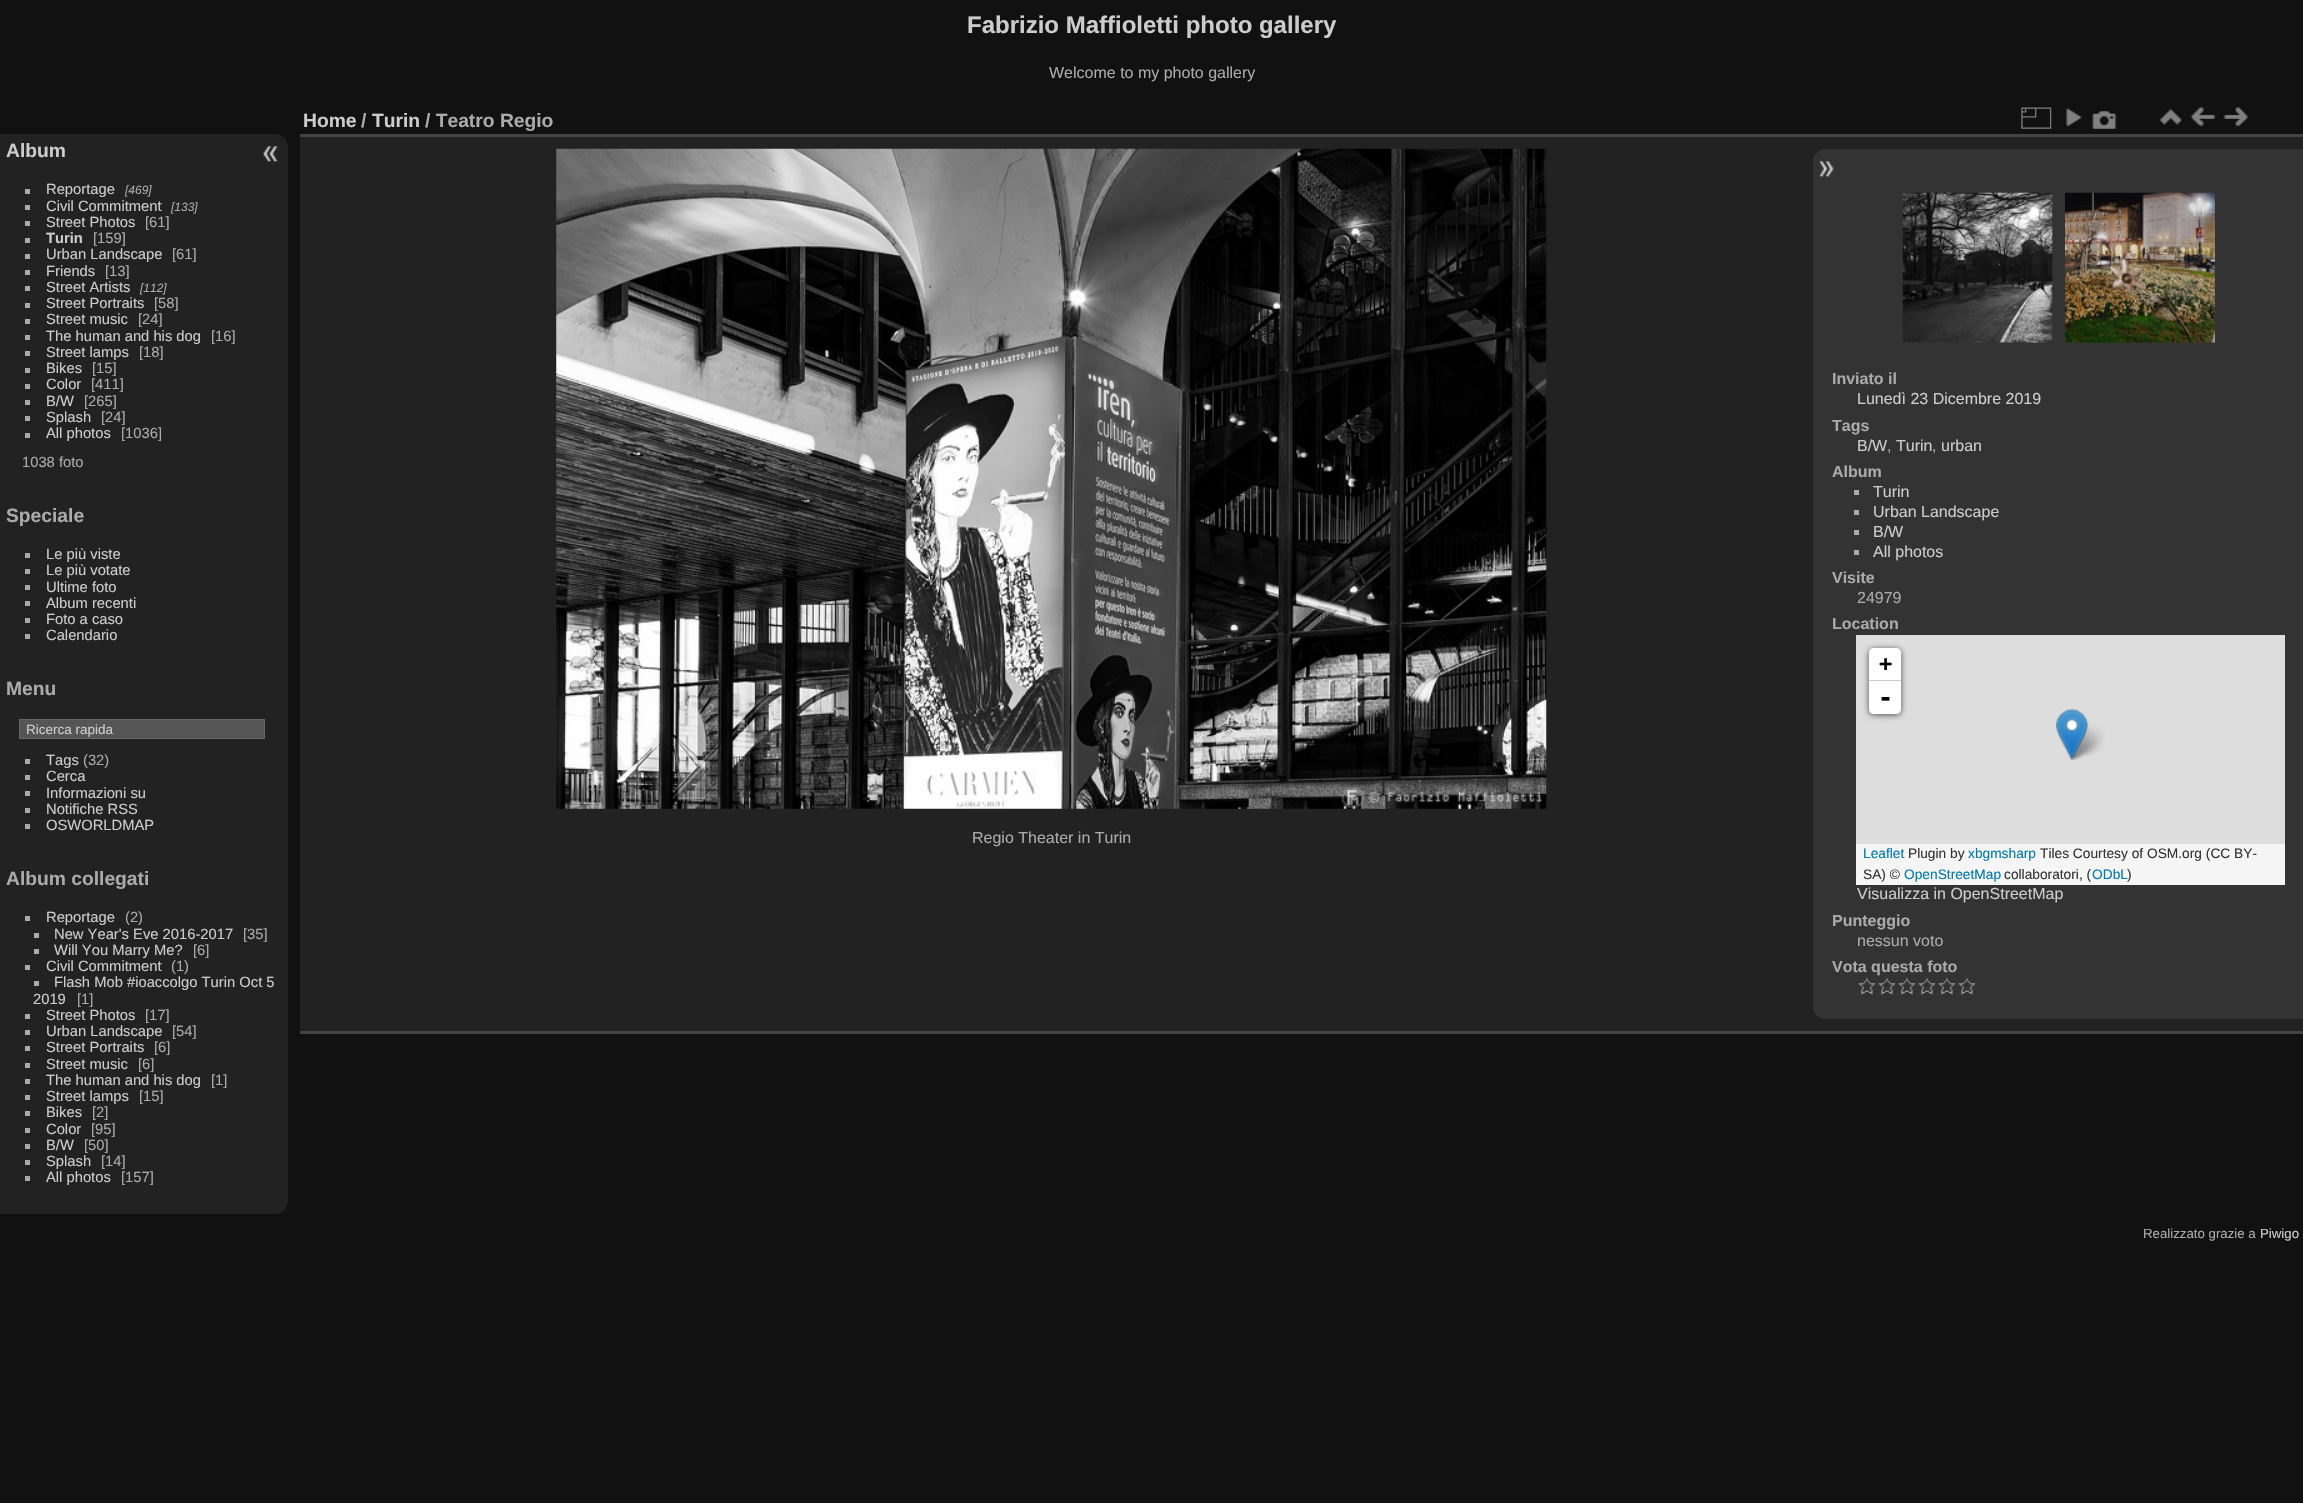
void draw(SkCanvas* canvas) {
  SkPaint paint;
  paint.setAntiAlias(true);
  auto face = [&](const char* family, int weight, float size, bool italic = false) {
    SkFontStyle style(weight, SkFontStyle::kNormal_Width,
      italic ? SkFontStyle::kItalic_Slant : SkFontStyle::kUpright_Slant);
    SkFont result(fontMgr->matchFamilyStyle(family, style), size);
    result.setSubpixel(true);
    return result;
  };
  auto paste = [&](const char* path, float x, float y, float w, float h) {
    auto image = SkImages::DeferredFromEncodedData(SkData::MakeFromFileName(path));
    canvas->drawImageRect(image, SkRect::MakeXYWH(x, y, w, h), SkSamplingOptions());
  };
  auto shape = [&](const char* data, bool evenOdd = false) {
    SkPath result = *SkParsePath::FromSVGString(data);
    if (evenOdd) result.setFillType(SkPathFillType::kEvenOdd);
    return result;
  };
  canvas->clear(0xff111111);
  paint.setColor(0xff222222);
  canvas->drawPath(shape("M0 134H275C282 134 288 140 288 147V1201C288 1208 282 1214 275 1214H0Z"), paint);
  {
    const struct { float x, y, w, h; SkColor color; } items[] = {
      {25, 189, 5, 5, 0xffaaaaaa},
      {25, 205, 5, 5, 0xffaaaaaa},
      {25, 221, 5, 5, 0xffaaaaaa},
      {25, 238, 5, 5, 0xffaaaaaa},
      {25, 254, 5, 5, 0xffaaaaaa},
      {25, 270, 5, 5, 0xffaaaaaa},
      {25, 286, 5, 5, 0xffaaaaaa},
      {25, 303, 5, 5, 0xffaaaaaa},
      {25, 319, 5, 5, 0xffaaaaaa},
      {25, 335, 5, 5, 0xffaaaaaa},
      {25, 351, 5, 5, 0xffaaaaaa},
      {25, 368, 5, 5, 0xffaaaaaa},
      {25, 384, 5, 5, 0xffaaaaaa},
      {25, 400, 5, 5, 0xffaaaaaa},
      {25, 416, 5, 5, 0xffaaaaaa},
      {25, 433, 5, 5, 0xffaaaaaa},
      {25, 553, 5, 5, 0xffaaaaaa},
      {25, 569, 5, 5, 0xffaaaaaa},
      {25, 585, 5, 5, 0xffaaaaaa},
      {25, 601, 5, 5, 0xffaaaaaa},
      {25, 618, 5, 5, 0xffaaaaaa},
      {25, 634, 5, 5, 0xffaaaaaa},
    };
    for (auto [x, y, w, h, color] : items) {
      paint.setColor(color);
      canvas->drawRect(SkRect::MakeXYWH(x, y, w, h), paint);
    }
  }
  paint.setColor(0xff555555);
  canvas->drawRect(SkRect::MakeXYWH(19.5f, 719.5f, 245, 19), paint);
  paint.setStroke(true);
  paint.setStrokeWidth(1);
  paint.setColor(0xff666666);
  canvas->drawRect(SkRect::MakeXYWH(19.5f, 719.5f, 245, 19), paint);
  paint.setStroke(false);
  {
    const struct { float x, y, w, h; SkColor color; } items[] = {
      {25, 759, 5, 5, 0xffaaaaaa},
      {25, 775, 5, 5, 0xffaaaaaa},
      {25, 791, 5, 5, 0xffaaaaaa},
      {25, 808, 5, 5, 0xffaaaaaa},
      {25, 824, 5, 5, 0xffaaaaaa},
      {25, 916, 5, 5, 0xffaaaaaa},
      {34, 933, 5, 5, 0xffaaaaaa},
      {34, 949, 5, 5, 0xffaaaaaa},
      {25, 965, 5, 5, 0xffaaaaaa},
      {34, 981, 5, 5, 0xffaaaaaa},
      {25, 1014, 5, 5, 0xffaaaaaa},
      {25, 1030, 5, 5, 0xffaaaaaa},
      {25, 1046, 5, 5, 0xffaaaaaa},
      {25, 1063, 5, 5, 0xffaaaaaa},
      {25, 1079, 5, 5, 0xffaaaaaa},
      {25, 1095, 5, 5, 0xffaaaaaa},
      {25, 1111, 5, 5, 0xffaaaaaa},
      {25, 1128, 5, 5, 0xffaaaaaa},
      {25, 1144, 5, 5, 0xffaaaaaa},
      {25, 1160, 5, 5, 0xffaaaaaa},
      {25, 1176, 5, 5, 0xffaaaaaa},
      {300, 137, 2003, 894, 0xff222222},
      {300, 1031, 2003, 3, 0xff444444},
      {300, 134, 2003, 3, 0xff444444},
    };
    for (auto [x, y, w, h, color] : items) {
      paint.setColor(color);
      canvas->drawRect(SkRect::MakeXYWH(x, y, w, h), paint);
    }
  }
  paste("img/1.png", 2021, 107, 31, 22);
  paste("img/2.png", 2066, 108, 16, 19);
  paste("img/3.png", 2092, 111, 25, 18);
  paste("img/4.png", 2160, 108, 22, 18);
  paste("img/5.png", 2191, 107, 25, 20);
  paste("img/6.png", 2223, 107, 25, 20);
  paint.setColor(0xff333333);
  canvas->drawPath(shape("M1826 149H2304V1019H1826C1819 1019 1813 1013 1813 1006V162C1813 155 1819 149 1826 149Z"), paint);
  paste("img/7.png", 1819, 161, 15, 16);
  paste("img/8.png", 556, 148, 991, 661);
  paste("img/9.png", 1902, 192, 151, 151);
  paste("img/10.png", 2065, 192, 150, 151);
  {
    const struct { float x, y, w, h; SkColor color; } items[] = {
      {1854, 490, 5, 5, 0xffaaaaaa},
      {1854, 510, 5, 5, 0xffaaaaaa},
      {1854, 530, 5, 5, 0xffaaaaaa},
      {1854, 550, 5, 5, 0xffaaaaaa},
      {1856, 635, 429, 209, 0xffdddddd},
    };
    for (auto [x, y, w, h, color] : items) {
      paint.setColor(color);
      canvas->drawRect(SkRect::MakeXYWH(x, y, w, h), paint);
    }
  }
  paint.setColor(0xa6000000);
  paint.setMaskFilter(SkMaskFilter::MakeBlur(kNormal_SkBlurStyle, 3));
  canvas->drawRoundRect(SkRect::MakeXYWH(1869, 649, 32, 66), 5, 5, paint);
  paint.setMaskFilter(nullptr);
  paint.setColor(0xffffffff);
  canvas->drawPath(shape("M1874 648H1896C1899 648 1901 650 1901 653V681H1869V653C1869 650 1871 648 1874 648Z"), paint);
  paint.setColor(0xffcccccc);
  canvas->drawRect(SkRect::MakeXYWH(1869, 680, 32, 1), paint);
  paint.setColor(0xffffffff);
  canvas->drawPath(shape("M1869 681H1901V709C1901 712 1899 714 1896 714H1874C1871 714 1869 712 1869 709Z"), paint);
  paint.setColor(0xfff5f5f5);
  canvas->drawRect(SkRect::MakeXYWH(1856, 844, 429, 41), paint);
  paste("img/12.png", 2067, 724, 38, 37);
  paste("img/11.png", 2056, 708, 33, 53);
  paste("img/13.png", 1858, 978, 18, 17);
  paste("img/13.png", 1878, 978, 18, 17);
  paste("img/13.png", 1898, 978, 18, 17);
  paste("img/13.png", 1918, 978, 18, 17);
  paste("img/13.png", 1938, 978, 18, 17);
  paste("img/13.png", 1958, 978, 18, 17);
  paste("img/14.png", 262, 146, 16, 16);
  auto f0 = face("Liberation Sans", 700, 24);
  paint.setColor(0xffcccccc);
  canvas->drawString("Fabrizio Maffioletti photo gallery", 967, 33, f0, paint);
  auto f1 = face("Liberation Sans", 400, 16);
  paint.setColor(0xffaaaaaa);
  canvas->drawString("Welcome to my photo gallery", 1049, 78, f1, paint);
  auto f2 = face("Liberation Sans", 700, 19.25f);
  paint.setColor(0xffcccccc);
  canvas->drawString("Album", 6, 157, f2, paint);
  auto f3 = face("Liberation Sans", 400, 14.75f);
  canvas->drawString("Reportage", 46, 194, f3, paint);
  auto f4 = face("Liberation Sans", 400, 12, true);
  paint.setColor(0xffaaaaaa);
  canvas->drawString("[469]", 125, 194, f4, paint);
  paint.setColor(0xffcccccc);
  canvas->drawString("Civil Commitment", 46, 211, f3, paint);
  paint.setColor(0xffaaaaaa);
  canvas->drawString("[133]", 171, 211, f4, paint);
  paint.setColor(0xffcccccc);
  canvas->drawString("Street Photos", 46, 227, f3, paint);
  paint.setColor(0xffaaaaaa);
  canvas->drawString("[61]", 145, 227, f3, paint);
  auto f5 = face("Liberation Sans", 700, 14.75f);
  paint.setColor(0xffcccccc);
  canvas->drawString("Turin", 46, 243, f5, paint);
  paint.setColor(0xffaaaaaa);
  canvas->drawString("[159]", 93, 243, f3, paint);
  paint.setColor(0xffcccccc);
  canvas->drawString("Urban Landscape", 46, 259, f3, paint);
  paint.setColor(0xffaaaaaa);
  canvas->drawString("[61]", 172, 259, f3, paint);
  paint.setColor(0xffcccccc);
  canvas->drawString("Friends", 46, 276, f3, paint);
  paint.setColor(0xffaaaaaa);
  canvas->drawString("[13]", 105, 276, f3, paint);
  paint.setColor(0xffcccccc);
  canvas->drawString("Street Artists", 46, 292, f3, paint);
  paint.setColor(0xffaaaaaa);
  canvas->drawString("[112]", 140, 292, f4, paint);
  paint.setColor(0xffcccccc);
  canvas->drawString("Street Portraits", 46, 308, f3, paint);
  paint.setColor(0xffaaaaaa);
  canvas->drawString("[58]", 154, 308, f3, paint);
  paint.setColor(0xffcccccc);
  canvas->drawString("Street music", 46, 324, f3, paint);
  paint.setColor(0xffaaaaaa);
  canvas->drawString("[24]", 138, 324, f3, paint);
  paint.setColor(0xffcccccc);
  canvas->drawString("The human and his dog", 46, 341, f3, paint);
  paint.setColor(0xffaaaaaa);
  canvas->drawString("[16]", 211, 341, f3, paint);
  paint.setColor(0xffcccccc);
  canvas->drawString("Street lamps", 46, 357, f3, paint);
  paint.setColor(0xffaaaaaa);
  canvas->drawString("[18]", 139, 357, f3, paint);
  paint.setColor(0xffcccccc);
  canvas->drawString("Bikes", 46, 373, f3, paint);
  paint.setColor(0xffaaaaaa);
  canvas->drawString("[15]", 92, 373, f3, paint);
  paint.setColor(0xffcccccc);
  canvas->drawString("Color", 46, 389, f3, paint);
  paint.setColor(0xffaaaaaa);
  canvas->drawString("[411]", 91, 389, f3, paint);
  paint.setColor(0xffcccccc);
  canvas->drawString("B/W", 46, 406, f3, paint);
  paint.setColor(0xffaaaaaa);
  canvas->drawString("[265]", 84, 406, f3, paint);
  paint.setColor(0xffcccccc);
  canvas->drawString("Splash", 46, 422, f3, paint);
  paint.setColor(0xffaaaaaa);
  canvas->drawString("[24]", 101, 422, f3, paint);
  paint.setColor(0xffcccccc);
  canvas->drawString("All photos", 46, 438, f3, paint);
  paint.setColor(0xffaaaaaa);
  canvas->drawString("[1036]", 121, 438, f3, paint);
  canvas->drawString("1038 foto", 22, 467, f3, paint);
  canvas->drawString("Speciale", 6, 522, f2, paint);
  paint.setColor(0xffcccccc);
  {
    const struct { const char* s; float x, y; } items[] = {
      {"Le più viste", 46, 559},
      {"Le più votate", 46, 575},
      {"Ultime foto", 46, 592},
      {"Album recenti", 46, 608},
      {"Foto a caso", 46, 624},
      {"Calendario", 46, 640},
    };
    for (auto [s, x, y] : items) {
      canvas->drawString(s, x, y, f3, paint);
    }
  }
  paint.setColor(0xffaaaaaa);
  canvas->drawString("Menu", 6, 695, f2, paint);
  auto f6 = face("Liberation Sans", 400, 13.5f);
  paint.setColor(0xffcccccc);
  canvas->drawString("Ricerca rapida", 26, 734, f6, paint);
  canvas->drawString("Tags", 46, 765, f3, paint);
  paint.setColor(0xffaaaaaa);
  canvas->drawString("(32)", 83, 765, f3, paint);
  paint.setColor(0xffcccccc);
  {
    const struct { const char* s; float x, y; } items[] = {
      {"Cerca", 46, 781},
      {"Informazioni su", 46, 798},
      {"Notifiche RSS", 46, 814},
      {"OSWORLDMAP", 46, 830},
    };
    for (auto [s, x, y] : items) {
      canvas->drawString(s, x, y, f3, paint);
    }
  }
  paint.setColor(0xffaaaaaa);
  canvas->drawString("Album collegati", 6, 885, f2, paint);
  paint.setColor(0xffcccccc);
  canvas->drawString("Reportage", 46, 922, f3, paint);
  paint.setColor(0xffaaaaaa);
  canvas->drawString("(2)", 125, 922, f3, paint);
  paint.setColor(0xffcccccc);
  canvas->drawString("New Year's Eve 2016-2017", 54, 939, f3, paint);
  paint.setColor(0xffaaaaaa);
  canvas->drawString("[35]", 243, 939, f3, paint);
  paint.setColor(0xffcccccc);
  canvas->drawString("Will You Marry Me?", 54, 955, f3, paint);
  paint.setColor(0xffaaaaaa);
  canvas->drawString("[6]", 193, 955, f3, paint);
  paint.setColor(0xffcccccc);
  canvas->drawString("Civil Commitment", 46, 971, f3, paint);
  paint.setColor(0xffaaaaaa);
  canvas->drawString("(1)", 171, 971, f3, paint);
  paint.setColor(0xffcccccc);
  canvas->drawString("Flash Mob #ioaccolgo Turin Oct 5", 54, 987, f3, paint);
  canvas->drawString("2019", 33, 1004, f3, paint);
  paint.setColor(0xffaaaaaa);
  canvas->drawString("[1]", 77, 1004, f3, paint);
  paint.setColor(0xffcccccc);
  canvas->drawString("Street Photos", 46, 1020, f3, paint);
  paint.setColor(0xffaaaaaa);
  canvas->drawString("[17]", 145, 1020, f3, paint);
  paint.setColor(0xffcccccc);
  canvas->drawString("Urban Landscape", 46, 1036, f3, paint);
  paint.setColor(0xffaaaaaa);
  canvas->drawString("[54]", 172, 1036, f3, paint);
  paint.setColor(0xffcccccc);
  canvas->drawString("Street Portraits", 46, 1052, f3, paint);
  paint.setColor(0xffaaaaaa);
  canvas->drawString("[6]", 154, 1052, f3, paint);
  paint.setColor(0xffcccccc);
  canvas->drawString("Street music", 46, 1069, f3, paint);
  paint.setColor(0xffaaaaaa);
  canvas->drawString("[6]", 138, 1069, f3, paint);
  paint.setColor(0xffcccccc);
  canvas->drawString("The human and his dog", 46, 1085, f3, paint);
  paint.setColor(0xffaaaaaa);
  canvas->drawString("[1]", 211, 1085, f3, paint);
  paint.setColor(0xffcccccc);
  canvas->drawString("Street lamps", 46, 1101, f3, paint);
  paint.setColor(0xffaaaaaa);
  canvas->drawString("[15]", 139, 1101, f3, paint);
  paint.setColor(0xffcccccc);
  canvas->drawString("Bikes", 46, 1117, f3, paint);
  paint.setColor(0xffaaaaaa);
  canvas->drawString("[2]", 92, 1117, f3, paint);
  paint.setColor(0xffcccccc);
  canvas->drawString("Color", 46, 1134, f3, paint);
  paint.setColor(0xffaaaaaa);
  canvas->drawString("[95]", 91, 1134, f3, paint);
  paint.setColor(0xffcccccc);
  canvas->drawString("B/W", 46, 1150, f3, paint);
  paint.setColor(0xffaaaaaa);
  canvas->drawString("[50]", 84, 1150, f3, paint);
  paint.setColor(0xffcccccc);
  canvas->drawString("Splash", 46, 1166, f3, paint);
  paint.setColor(0xffaaaaaa);
  canvas->drawString("[14]", 101, 1166, f3, paint);
  paint.setColor(0xffcccccc);
  canvas->drawString("All photos", 46, 1182, f3, paint);
  paint.setColor(0xffaaaaaa);
  canvas->drawString("[157]", 121, 1182, f3, paint);
  paint.setColor(0xffcccccc);
  canvas->drawString("Home", 303, 127, f2, paint);
  paint.setColor(0xffaaaaaa);
  canvas->drawString("/", 361, 127, f2, paint);
  paint.setColor(0xffcccccc);
  canvas->drawString("Turin", 372, 127, f2, paint);
  paint.setColor(0xffaaaaaa);
  canvas->drawString("/ Teatro Regio", 425, 127, f2, paint);
  canvas->drawString("Regio Theater in Turin", 972, 843, f1, paint);
  auto f7 = face("Liberation Sans", 700, 16);
  canvas->drawString("Inviato il", 1832, 384, f7, paint);
  paint.setColor(0xffcccccc);
  canvas->drawString("Lunedì 23 Dicembre 2019", 1857, 404, f1, paint);
  paint.setColor(0xffaaaaaa);
  canvas->drawString("Tags", 1832, 431, f7, paint);
  paint.setColor(0xffcccccc);
  canvas->drawString("B/W", 1857, 451, f1, paint);
  paint.setColor(0xffaaaaaa);
  canvas->drawString(",", 1887, 451, f1, paint);
  paint.setColor(0xffcccccc);
  canvas->drawString("Turin", 1896, 451, f1, paint);
  paint.setColor(0xffaaaaaa);
  canvas->drawString(",", 1932, 451, f1, paint);
  paint.setColor(0xffcccccc);
  canvas->drawString("urban", 1941, 451, f1, paint);
  paint.setColor(0xffaaaaaa);
  canvas->drawString("Album", 1832, 477, f7, paint);
  paint.setColor(0xffcccccc);
  {
    const struct { const char* s; float x, y; } items[] = {
      {"Turin", 1873, 497},
      {"Urban Landscape", 1873, 517},
      {"B/W", 1873, 537},
      {"All photos", 1873, 557},
    };
    for (auto [s, x, y] : items) {
      canvas->drawString(s, x, y, f1, paint);
    }
  }
  paint.setColor(0xffaaaaaa);
  canvas->drawString("Visite", 1832, 583, f7, paint);
  canvas->drawString("24979", 1857, 603, f1, paint);
  canvas->drawString("Location", 1832, 629, f7, paint);
  auto f8 = face("DejaVu Sans Mono", 700, 22);
  paint.setColor(0xff000000);
  canvas->drawString("+", 1879, 671, f8, paint);
  auto f9 = face("DejaVu Sans Mono", 700, 25);
  canvas->drawString("-", 1878, 706, f9, paint);
  auto f10 = face("Liberation Sans", 400, 13.75f);
  paint.setColor(0xff0078a8);
  canvas->drawString("Leaflet", 1863, 858, f10, paint);
  paint.setColor(0xff333333);
  canvas->drawString("Plugin by", 1908, 858, f10, paint);
  paint.setColor(0xff0078a8);
  canvas->drawString("xbgmsharp", 1968, 858, f10, paint);
  paint.setColor(0xff333333);
  canvas->drawString("Tiles Courtesy of OSM.org (CC BY-", 2040, 858, f10, paint);
  canvas->drawString("SA) ©", 1863, 879, f10, paint);
  paint.setColor(0xff0078a8);
  canvas->drawString("OpenStreetMap", 1904, 879, f10, paint);
  paint.setColor(0xff333333);
  canvas->drawString("collaboratori, (", 2004, 879, f10, paint);
  paint.setColor(0xff0078a8);
  canvas->drawString("ODbL", 2092, 879, f10, paint);
  paint.setColor(0xff333333);
  canvas->drawString(")", 2127, 879, f10, paint);
  paint.setColor(0xffcccccc);
  canvas->drawString("Visualizza in OpenStreetMap", 1857, 899, f1, paint);
  paint.setColor(0xffaaaaaa);
  canvas->drawString("Punteggio", 1832, 926, f7, paint);
  canvas->drawString("nessun voto", 1857, 946, f1, paint);
  canvas->drawString("Vota questa foto", 1832, 972, f7, paint);
  auto f11 = face("Liberation Sans", 400, 13.25f);
  canvas->drawString("Realizzato grazie a", 2143, 1238, f11, paint);
  paint.setColor(0xffcccccc);
  canvas->drawString("Piwigo", 2260, 1238, f11, paint);
}
